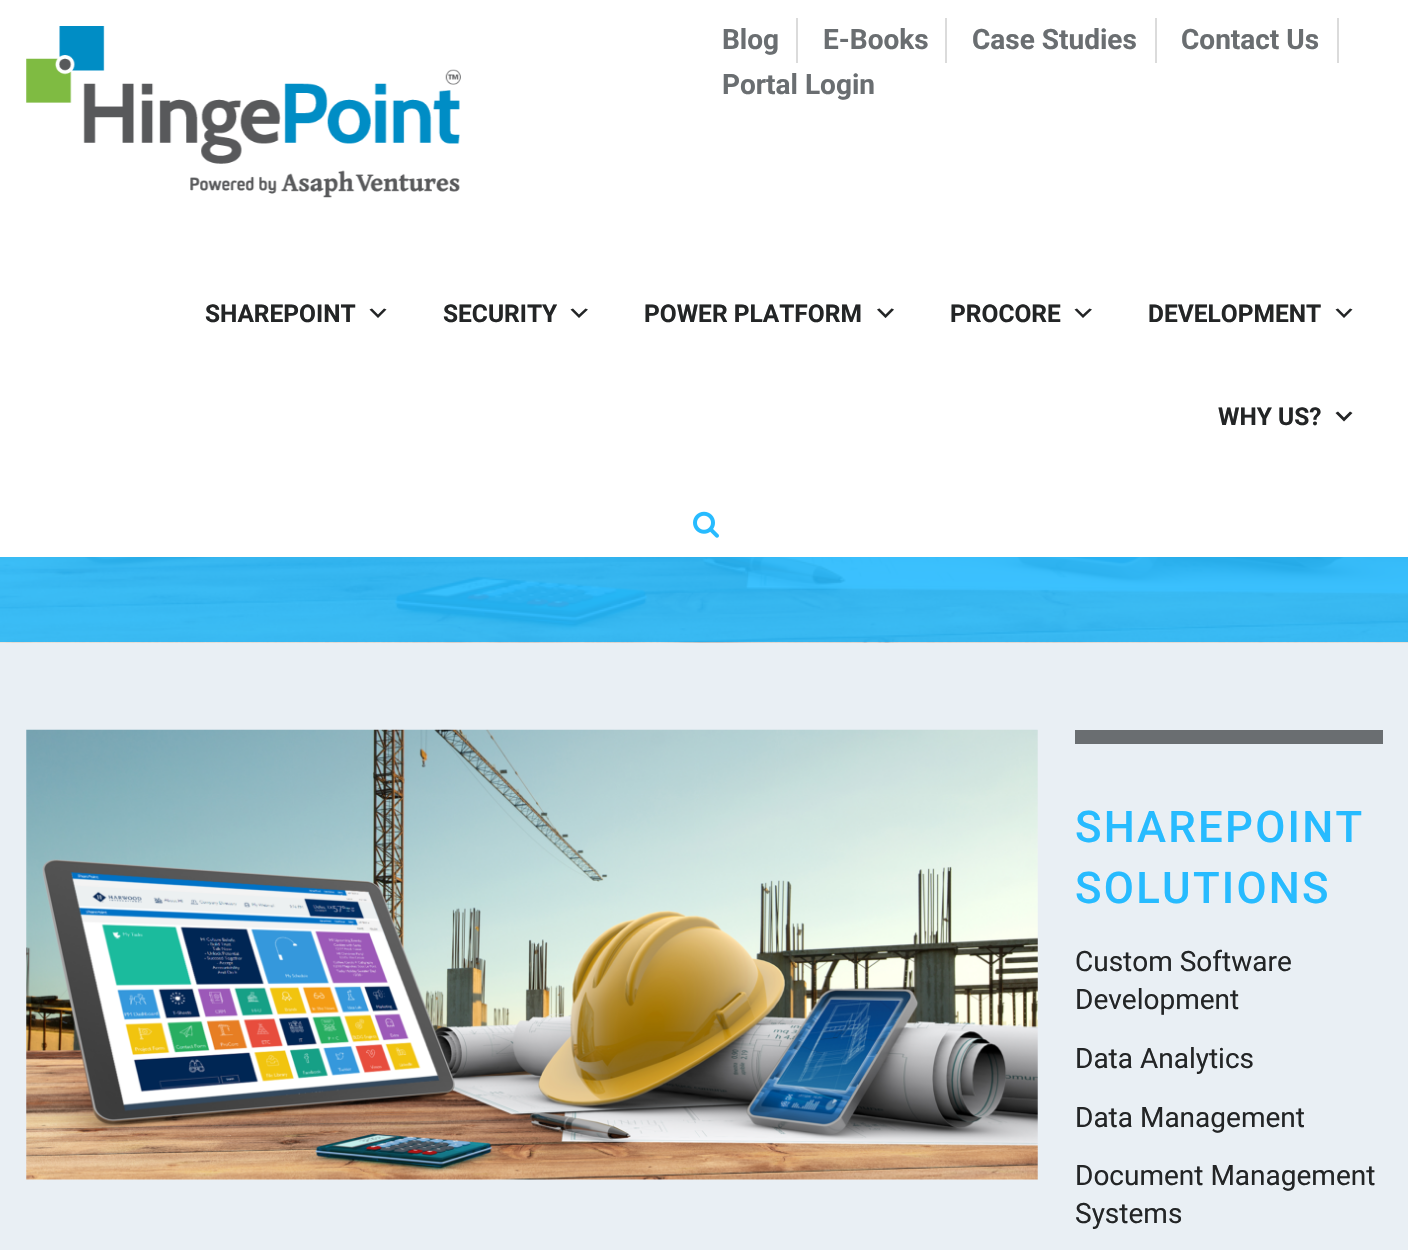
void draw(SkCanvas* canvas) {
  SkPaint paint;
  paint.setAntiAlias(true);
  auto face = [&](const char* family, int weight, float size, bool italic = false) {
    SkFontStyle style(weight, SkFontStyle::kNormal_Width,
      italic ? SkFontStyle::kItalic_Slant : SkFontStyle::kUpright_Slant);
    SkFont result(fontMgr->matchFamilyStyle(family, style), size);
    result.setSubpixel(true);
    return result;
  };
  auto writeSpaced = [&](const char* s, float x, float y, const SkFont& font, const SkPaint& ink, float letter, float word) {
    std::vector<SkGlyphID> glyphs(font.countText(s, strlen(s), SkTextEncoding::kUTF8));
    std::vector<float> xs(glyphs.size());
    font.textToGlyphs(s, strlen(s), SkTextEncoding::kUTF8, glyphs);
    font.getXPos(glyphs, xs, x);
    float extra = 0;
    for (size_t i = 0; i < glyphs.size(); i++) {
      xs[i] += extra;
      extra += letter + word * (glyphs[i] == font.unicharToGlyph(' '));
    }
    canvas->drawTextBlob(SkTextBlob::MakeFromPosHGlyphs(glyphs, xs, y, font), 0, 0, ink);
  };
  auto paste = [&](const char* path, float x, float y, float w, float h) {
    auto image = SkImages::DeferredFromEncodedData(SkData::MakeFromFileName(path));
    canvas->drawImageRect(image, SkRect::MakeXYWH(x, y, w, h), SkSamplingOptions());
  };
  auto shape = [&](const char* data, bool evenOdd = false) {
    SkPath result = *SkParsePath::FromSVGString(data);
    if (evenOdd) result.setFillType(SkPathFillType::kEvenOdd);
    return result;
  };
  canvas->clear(0xffe9eff4);
  paint.setColor(0xffffffff);
  canvas->drawRect(SkRect::MakeXYWH(0, 0, 1408, 557), paint);
  paste("img/1.png", 26, 26, 435, 172);
  {
    const struct { float x, y, w, h; SkColor color; } items[] = {
      {796, 18, 2, 45, 0xffdbdbdb},
      {945, 18, 2, 45, 0xffdbdbdb},
      {1155, 18, 2, 45, 0xffdbdbdb},
      {1337, 18, 2, 45, 0xffdbdbdb},
    };
    for (auto [x, y, w, h, color] : items) {
      paint.setColor(color);
      canvas->drawRect(SkRect::MakeXYWH(x, y, w, h), paint);
    }
  }
  paint.setColor(0xff232526);
  canvas->drawPath(shape("M372 308.5L378 314.5L384 308.5L386.5 309.5L378 318L369.5 309.5Z"), paint);
  canvas->drawPath(shape("M573 308.5L579 314.5L585.5 308.5L588 309.5L579 318L570.5 309.5Z"), paint);
  paste("img/2.png", 877, 308, 17, 10);
  canvas->drawPath(shape("M1077 308.5L1083 314.5L1089.5 308.5L1092 309.5L1083 318L1074.5 309.5Z"), paint);
  canvas->drawPath(shape("M1338 308.5L1344 314.5L1350 308.5L1352.5 309.5L1344 318L1335.5 309.5Z"), paint);
  canvas->drawPath(shape("M1338 411.5L1344 417.5L1350 411.5L1352.5 413L1344 421.5L1335.5 413Z"), paint);
  paste("img/3.png", 693, 511, 26, 27);
  paste("img/4.png", 0, 557, 1408, 86);
  paste("img/5.png", 26, 729, 1012, 451);
  paint.setColor(0xff6a6e71);
  canvas->drawRect(SkRect::MakeXYWH(1075, 730, 308, 14), paint);
  auto f0 = face("Roboto", 700, 28);
  {
    const struct { const char* s; float x, y; } items[] = {
      {"Blog", 722, 49},
      {"E-Books", 823, 49},
      {"Case Studies", 972, 49},
      {"Contact Us", 1181, 49},
      {"Portal Login", 722, 94},
    };
    for (auto [s, x, y] : items) {
      canvas->drawString(s, x, y, f0, paint);
    }
  }
  auto f1 = face("Roboto", 700, 24.5f);
  paint.setColor(0xff232526);
  {
    const struct { const char* s; float x, y; } items[] = {
      {"SHAREPOINT", 205, 322},
      {"SECURITY", 443, 322},
      {"POWER PLATFORM", 644, 322},
      {"PROCORE", 950, 322},
      {"DEVELOPMENT", 1148, 322},
      {"WHY US?", 1218, 425},
    };
    for (auto [s, x, y] : items) {
      canvas->drawString(s, x, y, f1, paint);
    }
  }
  auto f2 = face("Roboto", 500, 43.75f);
  paint.setColor(0xff27bbff);
  writeSpaced("SHAREPOINT", 1075, 842, f2, paint, 2.25f, 0);
  writeSpaced("SOLUTIONS", 1075, 903, f2, paint, 2.25f, 0);
  auto f3 = face("Roboto", 400, 28);
  paint.setColor(0xff232526);
  {
    const struct { const char* s; float x, y; } items[] = {
      {"Custom Software", 1075, 971},
      {"Development", 1075, 1009},
      {"Data Analytics", 1075, 1068},
      {"Data Management", 1075, 1127},
      {"Document Management", 1075, 1185},
      {"Systems", 1075, 1223},
    };
    for (auto [s, x, y] : items) {
      canvas->drawString(s, x, y, f3, paint);
    }
  }
}
